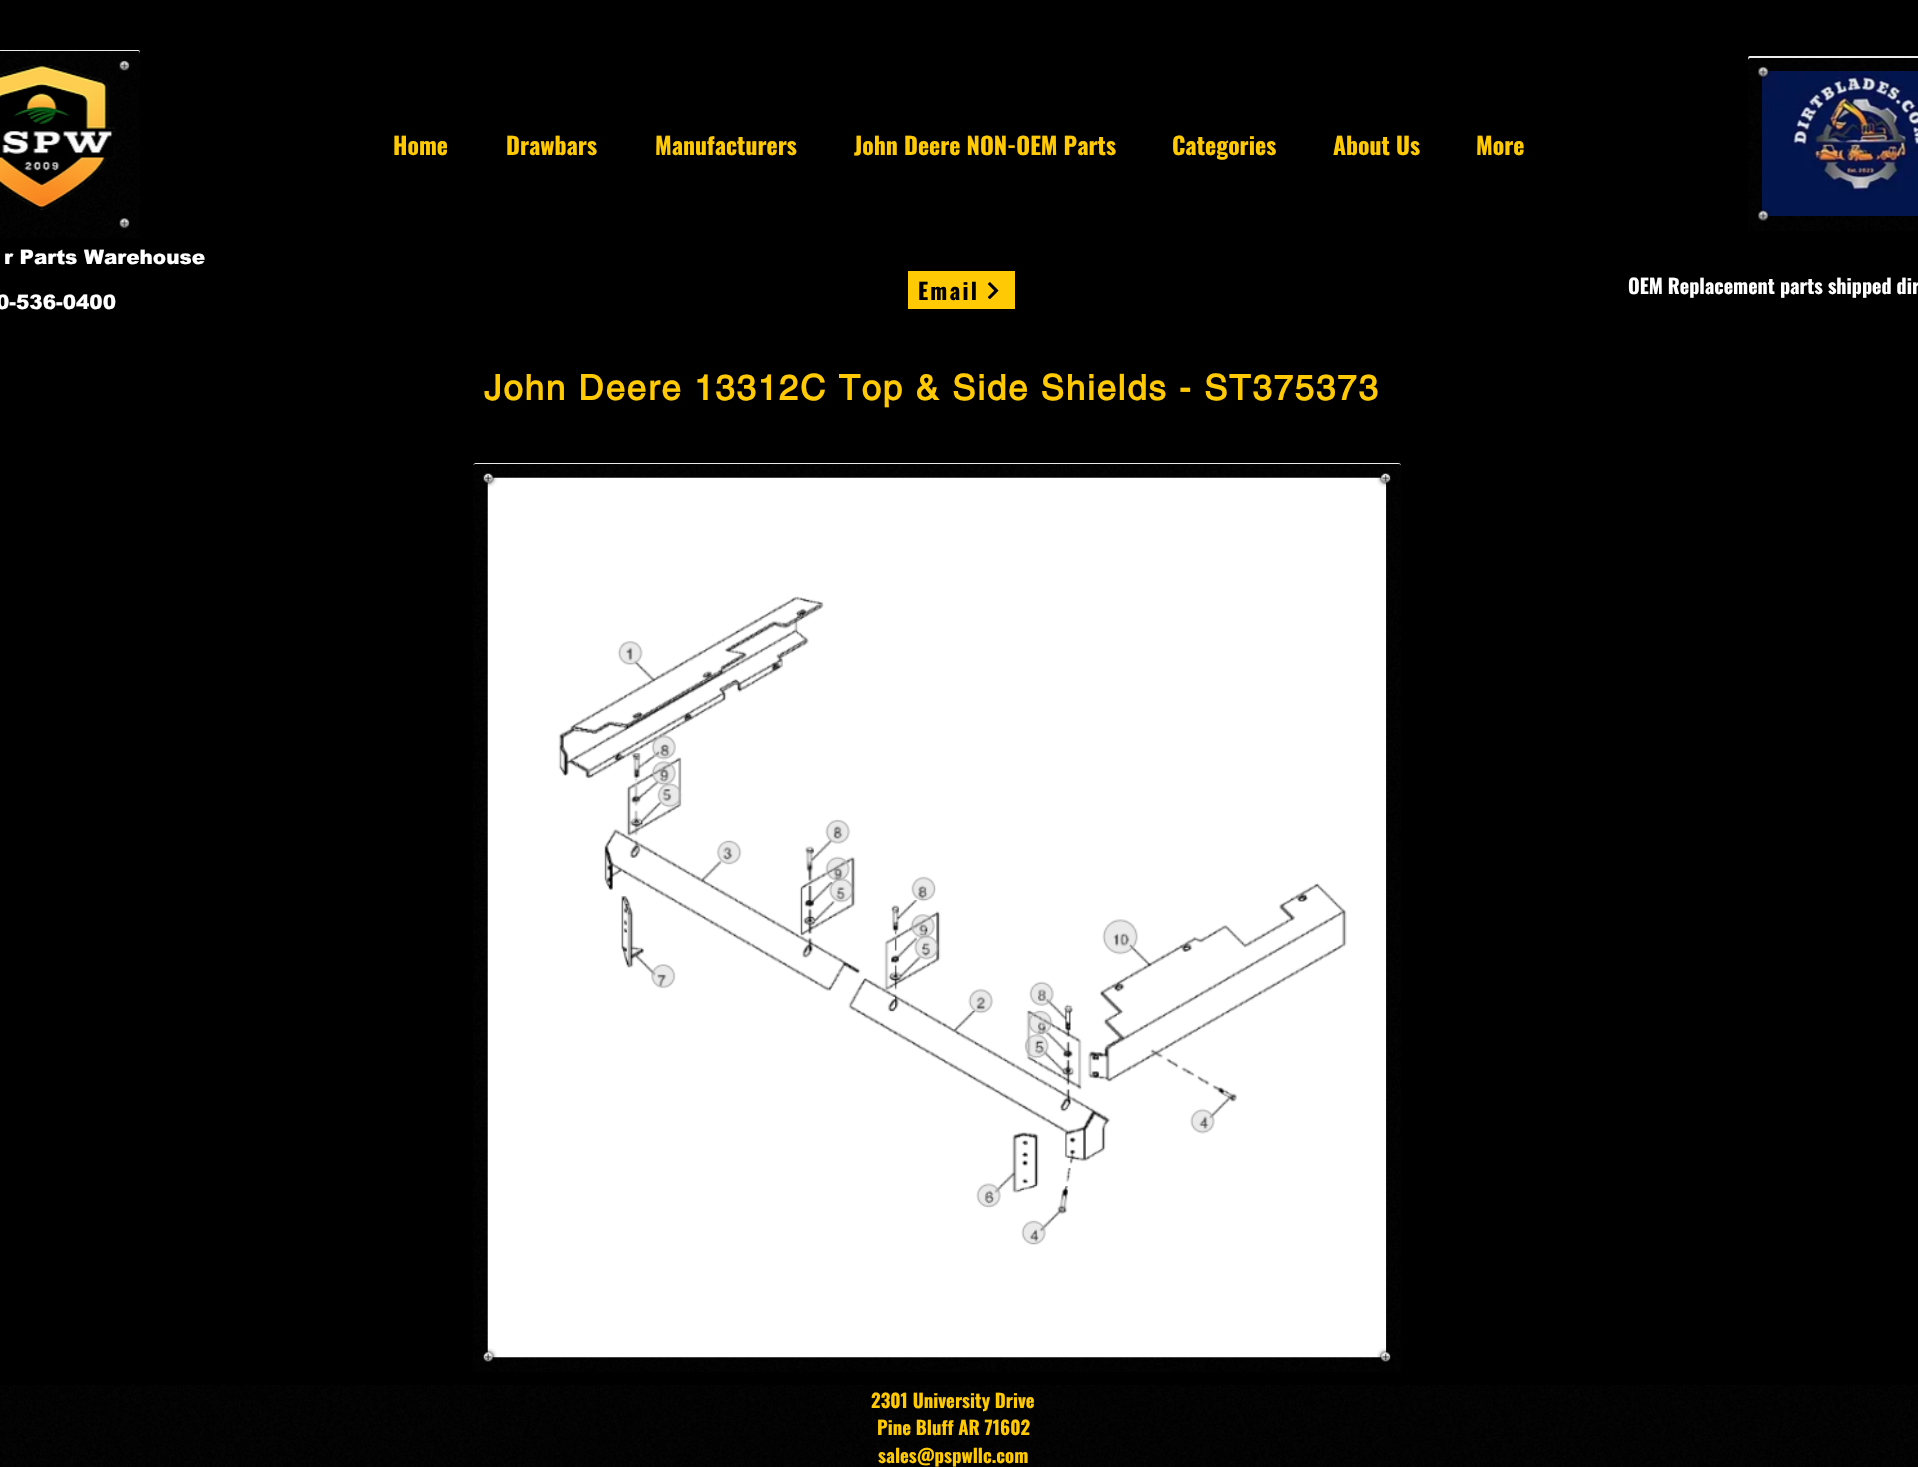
void draw(SkCanvas* canvas) {
  SkPaint paint;
  paint.setAntiAlias(true);
  auto face = [&](const char* family, int weight, float size, bool italic = false) {
    SkFontStyle style(weight, SkFontStyle::kNormal_Width,
      italic ? SkFontStyle::kItalic_Slant : SkFontStyle::kUpright_Slant);
    SkFont result(fontMgr->matchFamilyStyle(family, style), size);
    result.setSubpixel(true);
    return result;
  };
  auto writeSpaced = [&](const char* s, float x, float y, const SkFont& font, const SkPaint& ink, float letter, float word) {
    std::vector<SkGlyphID> glyphs(font.countText(s, strlen(s), SkTextEncoding::kUTF8));
    std::vector<float> xs(glyphs.size());
    font.textToGlyphs(s, strlen(s), SkTextEncoding::kUTF8, glyphs);
    font.getXPos(glyphs, xs, x);
    float extra = 0;
    for (size_t i = 0; i < glyphs.size(); i++) {
      xs[i] += extra;
      extra += letter + word * (glyphs[i] == font.unicharToGlyph(' '));
    }
    canvas->drawTextBlob(SkTextBlob::MakeFromPosHGlyphs(glyphs, xs, y, font), 0, 0, ink);
  };
  auto paste = [&](const char* path, float x, float y, float w, float h) {
    auto image = SkImages::DeferredFromEncodedData(SkData::MakeFromFileName(path));
    canvas->drawImageRect(image, SkRect::MakeXYWH(x, y, w, h), SkSamplingOptions());
  };
  auto shape = [&](const char* data, bool evenOdd = false) {
    SkPath result = *SkParsePath::FromSVGString(data);
    if (evenOdd) result.setFillType(SkPathFillType::kEvenOdd);
    return result;
  };
  canvas->clear(0xff000000);
  paste("img/1.png", 0, 50, 140, 188);
  paint.setColor(0xebffffff);
  canvas->drawPath(shape("M-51 51C-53 51-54 52-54 54C-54 52-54 50-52 50H138C140 50 140 52 140 54C140 52 139 51 138 51Z"), paint);
  paste("img/2.png", 0, 65, 115, 145);
  paste("img/3.png", 119, 60, 11, 11);
  paste("img/4.png", 119, 218, 11, 11);
  paste("img/5.png", 1748, 56, 170, 175);
  canvas->drawPath(shape("M1750 58C1749 58 1748 59 1748 60C1748 58 1748 56 1750 56H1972C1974 56 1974 58 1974 60C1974 59 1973 58 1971 58Z"), paint);
  paste("img/7.png", 1762, 71, 156, 145);
  paste("img/6.png", 1758, 66, 13, 14);
  paste("img/8.png", 1758, 208, 13, 13);
  paint.setColor(0xffffca04);
  canvas->drawRect(SkRect::MakeXYWH(908, 271, 107, 38), paint);
  paste("img/9.png", 987, 282, 12, 18);
  paste("img/10.png", 473, 463, 928, 909);
  paint.setColor(0xebffffff);
  canvas->drawPath(shape("M475 464H1399C1400 464 1401 465 1401 466C1401 464 1400 463 1398 463H476C474 463 474 464 473 465Z"), paint);
  paste("img/13.png", 487, 477, 900, 881);
  paste("img/11.png", 483, 473, 14, 14);
  paste("img/12.png", 1377, 473, 14, 14);
  paste("img/14.png", 483, 1348, 14, 14);
  paste("img/15.png", 1377, 1348, 14, 14);
  paste("img/16.png", 0, 1385, 1918, 82);
  auto f0 = face("Oswald", 700, 23.75f);
  paint.setColor(0xffffca04);
  {
    const struct { const char* s; float x, y; } items[] = {
      {"Home", 393, 155},
      {"Drawbars", 506, 155},
      {"Manufacturers", 655, 155},
      {"John Deere NON-OEM Parts", 854, 155},
      {"Categories", 1172, 155},
      {"About Us", 1333, 155},
      {"More", 1476, 155},
    };
    for (auto [s, x, y] : items) {
      canvas->drawString(s, x, y, f0, paint);
    }
  }
  auto f1 = face("arial", 900, 20);
  paint.setColor(0xffffffff);
  canvas->drawString("r Parts Warehouse", 4, 264, f1, paint);
  canvas->drawString("0-536-0400", -4, 309, f1, paint);
  auto f2 = face("Oswald", 700, 22.5f);
  paint.setColor(0xff000000);
  writeSpaced("Email", 918, 300, f2, paint, 2.25f, 0);
  auto f3 = face("Oswald", 700, 20);
  paint.setColor(0xffffffff);
  canvas->drawString("OEM Replacement parts shipped dir", 1628, 294, f3, paint);
  auto f4 = face("helvetica", 700, 35);
  paint.setColor(0xffffca04);
  writeSpaced("John Deere 13312C Top & Side Shields - ST375373", 484, 400, f4, paint, 1.75f, 0);
  auto f5 = face("Oswald", 700, 18.75f);
  {
    const struct { const char* s; float x, y; } items[] = {
      {"2301 University Drive", 871, 1408},
      {"Pine Bluff AR 71602", 877, 1435},
      {"sales@pspwllc.com", 878, 1463},
    };
    for (auto [s, x, y] : items) {
      canvas->drawString(s, x, y, f5, paint);
    }
  }
}
